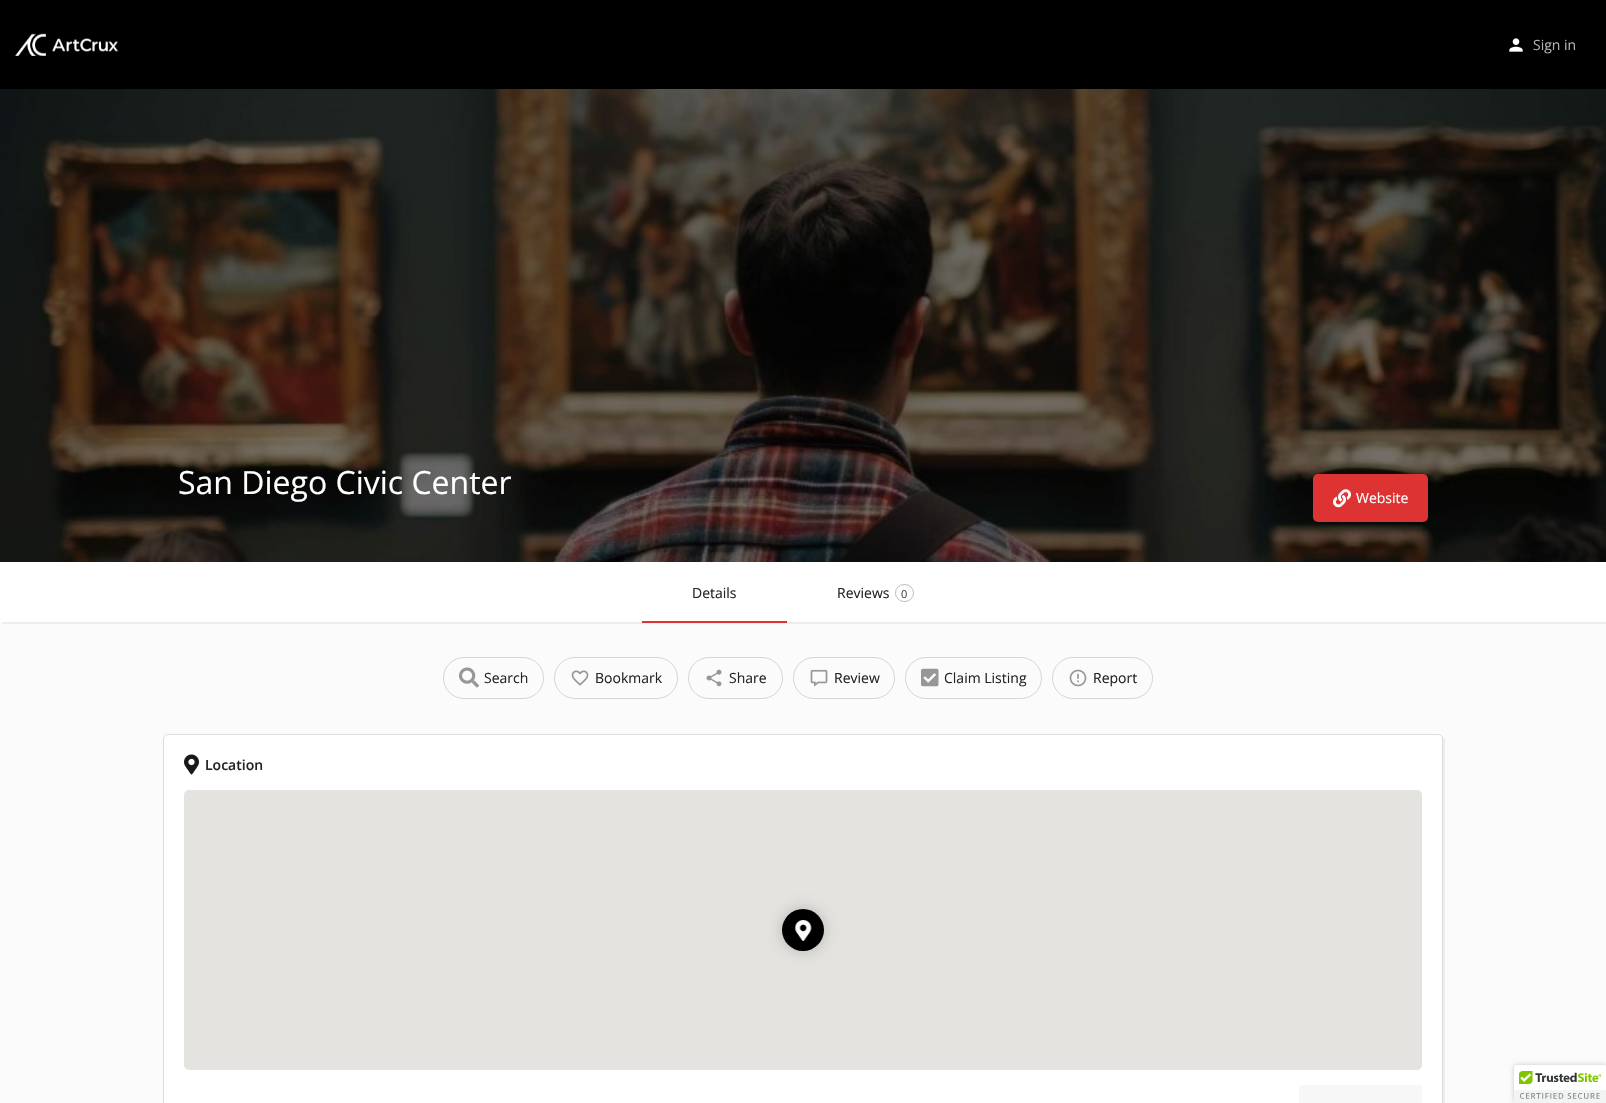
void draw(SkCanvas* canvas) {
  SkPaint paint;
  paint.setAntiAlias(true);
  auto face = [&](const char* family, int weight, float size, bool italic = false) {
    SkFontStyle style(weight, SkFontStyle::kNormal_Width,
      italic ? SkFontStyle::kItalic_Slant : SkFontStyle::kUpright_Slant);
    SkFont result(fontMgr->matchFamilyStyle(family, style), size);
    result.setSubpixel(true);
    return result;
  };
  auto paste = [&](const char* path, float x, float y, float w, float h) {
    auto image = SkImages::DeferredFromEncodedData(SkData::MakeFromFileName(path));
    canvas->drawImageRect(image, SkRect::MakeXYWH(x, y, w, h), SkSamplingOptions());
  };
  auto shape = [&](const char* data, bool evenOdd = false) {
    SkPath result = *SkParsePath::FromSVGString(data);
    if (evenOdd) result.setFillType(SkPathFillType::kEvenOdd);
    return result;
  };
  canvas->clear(0xfffbfbfb);
  paint.setColor(0xff000000);
  canvas->drawRect(SkRect::MakeXYWH(0, 0, 1606, 89), paint);
  paste("img/1.png", 15, 33, 103, 23);
  paste("img/2.png", 1509, 38, 14, 14);
  paste("img/3.png", 0, 89, 1606, 473);
  paint.setColor(0xffdd3333);
  canvas->drawRoundRect(SkRect::MakeXYWH(1313, 474, 115, 48), 5, 5, paint);
  paste("img/4.png", 1333, 489, 18, 19);
  paint.setColor(0xffededed);
  canvas->drawPath(shape("M2 622V624H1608V564H1606V622Z"), paint);
  paint.setColor(0xffffffff);
  canvas->drawRect(SkRect::MakeXYWH(0, 562, 1606, 60), paint);
  paint.setColor(0xffdd3333);
  canvas->drawRect(SkRect::MakeXYWH(642, 621, 145, 2), paint);
  paint.setStroke(true);
  paint.setStrokeWidth(1);
  paint.setColor(0xffbac1c1);
  canvas->drawRoundRect(SkRect::MakeXYWH(895.5f, 584.5f, 18, 17), 8.5f, 8.5f, paint);
  paint.setColor(0xffd5d5d5);
  canvas->drawRoundRect(SkRect::MakeXYWH(443.5f, 657.5f, 100, 41), 20.5f, 20.5f, paint);
  paste("img/5.png", 459, 667, 20, 21);
  canvas->drawRoundRect(SkRect::MakeXYWH(554.5f, 657.5f, 123, 41), 20.5f, 20.5f, paint);
  paste("img/6.png", 571, 670, 18, 16);
  canvas->drawRoundRect(SkRect::MakeXYWH(688.5f, 657.5f, 94, 41), 20.5f, 20.5f, paint);
  paste("img/7.png", 706, 669, 16, 18);
  canvas->drawRoundRect(SkRect::MakeXYWH(793.5f, 657.5f, 101, 41), 20.5f, 20.5f, paint);
  paste("img/8.png", 810, 669, 18, 18);
  canvas->drawRoundRect(SkRect::MakeXYWH(905.5f, 657.5f, 136, 41), 20.5f, 20.5f, paint);
  paste("img/9.png", 921, 668, 18, 19);
  canvas->drawRoundRect(SkRect::MakeXYWH(1052.5f, 657.5f, 100, 41), 20.5f, 20.5f, paint);
  paste("img/10.png", 1069, 669, 18, 18);
  paint.setStroke(false);
  paint.setColor(0xffededed);
  canvas->drawPath(shape("M166 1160C166 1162 168 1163 170 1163H1440C1443 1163 1445 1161 1445 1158V741C1445 739 1444 737 1442 737L1443 739V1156C1443 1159 1441 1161 1438 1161H168Z"), paint);
  paint.setColor(0xffffffff);
  canvas->drawRoundRect(SkRect::MakeXYWH(163.5f, 734.5f, 1279, 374), 4.5f, 4.5f, paint);
  paint.setStroke(true);
  paint.setColor(0xffdddddd);
  canvas->drawRoundRect(SkRect::MakeXYWH(163.5f, 734.5f, 1279, 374), 4.5f, 4.5f, paint);
  paste("img/11.png", 184, 754, 15, 21);
  paint.setStroke(false);
  paint.setColor(0xffe5e3df);
  canvas->drawRoundRect(SkRect::MakeXYWH(184, 790, 1238, 280), 5, 5, paint);
  paint.setColor(0x33000000);
  paint.setMaskFilter(SkMaskFilter::MakeBlur(kNormal_SkBlurStyle, 7.5f));
  canvas->drawRoundRect(SkRect::MakeXYWH(782, 909, 42, 42), 21, 21, paint);
  paint.setMaskFilter(nullptr);
  paste("img/12.png", 782, 909, 42, 42);
  paint.setColor(0xfff7f7f7);
  canvas->drawRoundRect(SkRect::MakeXYWH(1299, 1085, 123, 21), 3, 3, paint);
  paint.setColor(0x33000000);
  paint.setMaskFilter(SkMaskFilter::MakeBlur(kNormal_SkBlurStyle, 2.5f));
  canvas->drawRoundRect(SkRect::MakeXYWH(1514, 1065, 92, 38), 2, 2, paint);
  paint.setMaskFilter(nullptr);
  paint.setColor(0xffffffff);
  canvas->drawPath(shape("M1516 1065H1606V1103H1514V1067C1514 1066 1515 1065 1516 1065Z"), paint);
  paste("img/13.png", 1514, 1065, 92, 38);
  auto f0 = face("Open Sans", 400, 14);
  paint.setColor(0xffb3b3b3);
  canvas->drawString("Sign in", 1533, 50, f0, paint);
  auto f1 = face("Open Sans", 400, 32);
  paint.setColor(0xffffffff);
  canvas->drawString("San Diego Civic Center", 178, 494, f1, paint);
  canvas->drawString("Website", 1356, 503, f0, paint);
  paint.setColor(0xff242429);
  canvas->drawString("Details", 692, 598, f0, paint);
  canvas->drawString("Reviews", 837, 598, f0, paint);
  auto f2 = face("Open Sans", 400, 11);
  paint.setColor(0xff484848);
  canvas->drawString("0", 901, 598, f2, paint);
  paint.setColor(0xff242429);
  {
    const struct { const char* s; float x, y; } items[] = {
      {"Search", 484, 683},
      {"Bookmark", 595, 683},
      {"Share", 729, 683},
      {"Review", 834, 683},
      {"Claim Listing", 944, 683},
      {"Report", 1093, 683},
    };
    for (auto [s, x, y] : items) {
      canvas->drawString(s, x, y, f0, paint);
    }
  }
  auto f3 = face("Open Sans", 600, 14);
  canvas->drawString("Location", 205, 770, f3, paint);
}
